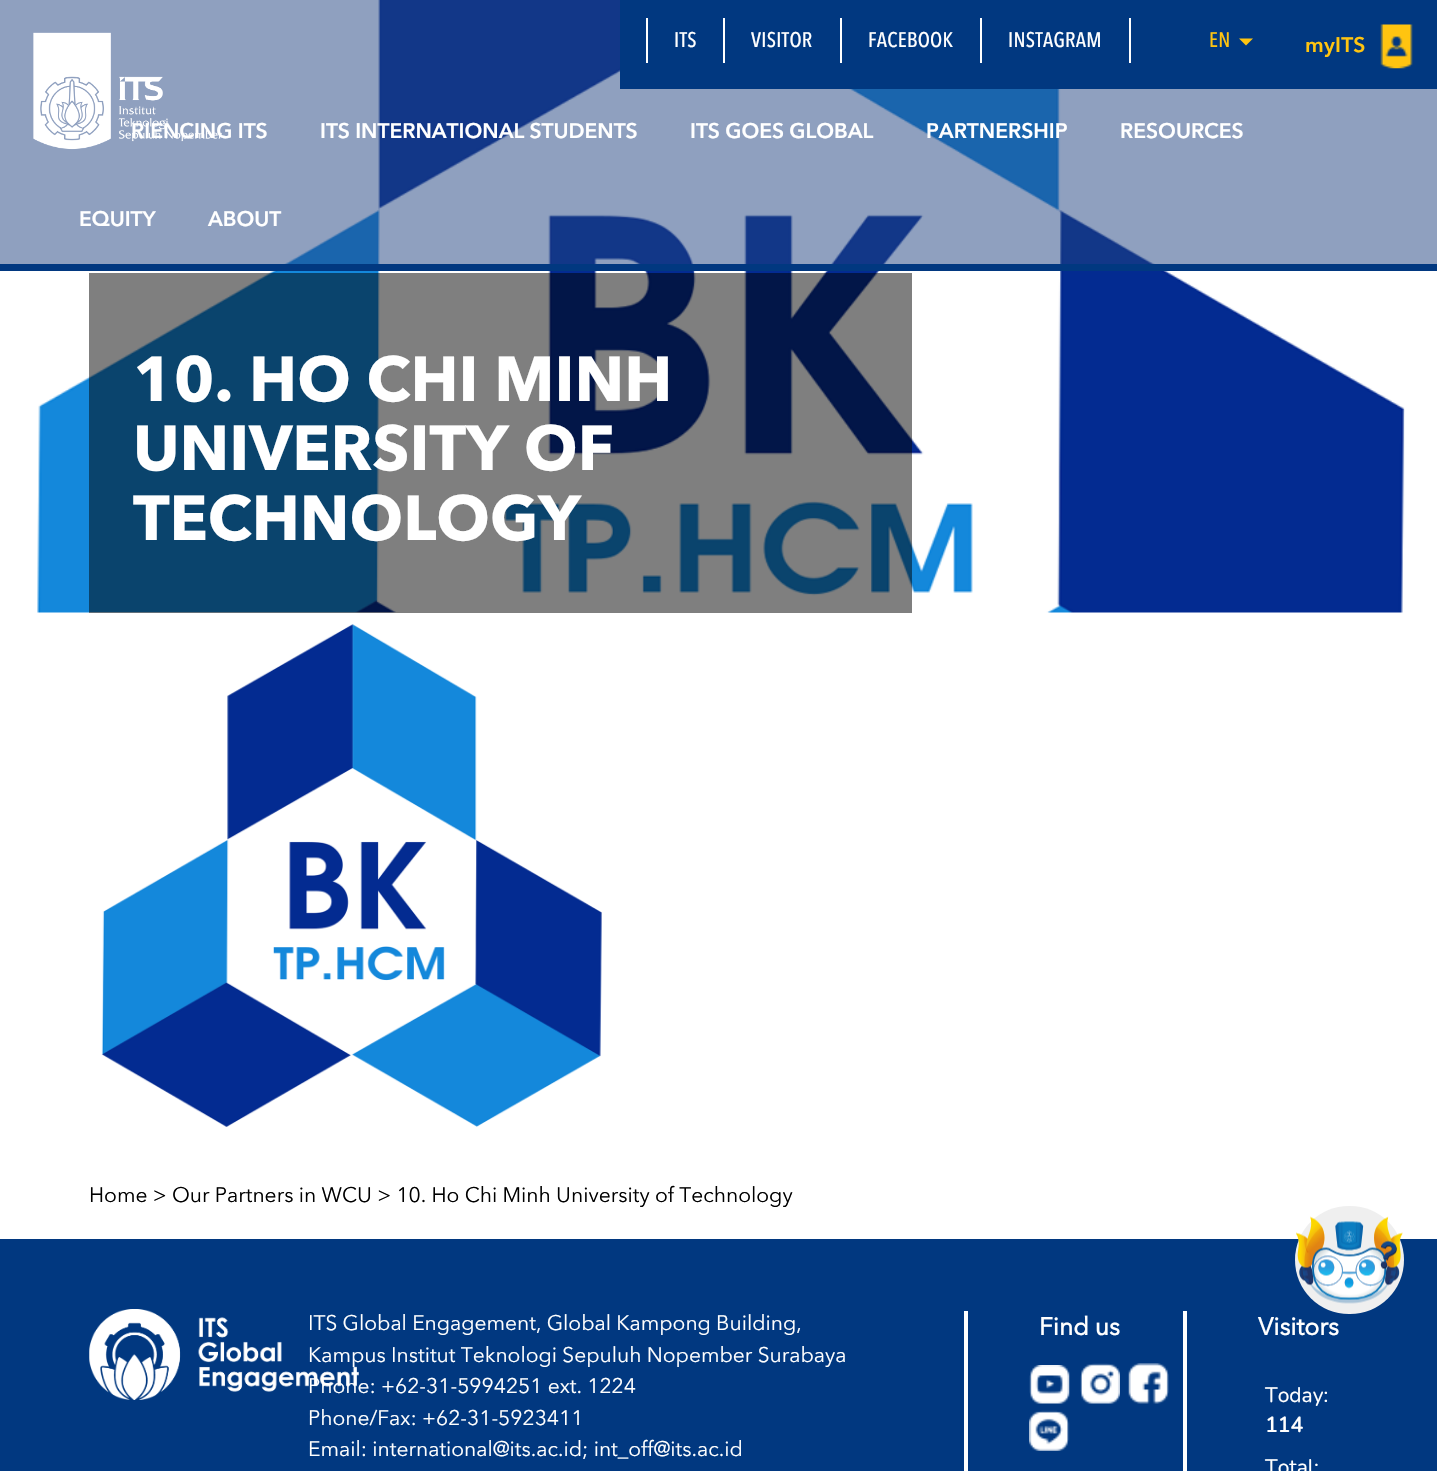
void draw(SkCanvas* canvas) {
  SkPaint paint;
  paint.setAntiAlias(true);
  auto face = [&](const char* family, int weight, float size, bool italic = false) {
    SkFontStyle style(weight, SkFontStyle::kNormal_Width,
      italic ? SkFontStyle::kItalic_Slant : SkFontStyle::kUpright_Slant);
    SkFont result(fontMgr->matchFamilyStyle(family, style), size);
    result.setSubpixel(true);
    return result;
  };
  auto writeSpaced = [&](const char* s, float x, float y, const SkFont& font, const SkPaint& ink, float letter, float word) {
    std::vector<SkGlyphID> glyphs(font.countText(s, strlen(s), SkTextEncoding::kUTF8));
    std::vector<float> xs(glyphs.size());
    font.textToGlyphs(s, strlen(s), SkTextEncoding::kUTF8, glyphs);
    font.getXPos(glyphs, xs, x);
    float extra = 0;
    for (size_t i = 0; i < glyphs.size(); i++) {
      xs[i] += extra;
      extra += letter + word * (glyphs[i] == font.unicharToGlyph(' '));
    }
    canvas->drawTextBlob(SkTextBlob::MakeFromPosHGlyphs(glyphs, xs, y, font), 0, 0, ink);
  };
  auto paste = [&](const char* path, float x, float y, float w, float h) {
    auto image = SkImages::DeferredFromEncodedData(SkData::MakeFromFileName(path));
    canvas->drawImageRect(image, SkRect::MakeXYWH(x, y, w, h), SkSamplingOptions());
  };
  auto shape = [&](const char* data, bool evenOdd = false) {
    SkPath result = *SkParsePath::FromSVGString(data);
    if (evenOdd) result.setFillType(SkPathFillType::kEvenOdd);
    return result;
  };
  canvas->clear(0xffffffff);
  paste("img/3.png", 37, 0, 1368, 613);
  {
    const struct { float x, y, w, h; SkColor color; } items[] = {
      {0, 0, 1437, 264, 0x8020417f},
      {0, 264, 1437, 7, 0xff013880},
      {620, 0, 817, 89, 0xff013880},
      {723, 18, 2, 45, 0xffffffff},
      {646, 18, 2, 45, 0xffffffff},
      {840, 18, 2, 45, 0xffffffff},
      {980, 18, 2, 45, 0xffffffff},
      {1129, 18, 2, 45, 0xffffffff},
    };
    for (auto [x, y, w, h, color] : items) {
      paint.setColor(color);
      canvas->drawRect(SkRect::MakeXYWH(x, y, w, h), paint);
    }
  }
  paint.setColor(0xffffc410);
  canvas->drawPath(shape("M1239 38.5H1253L1246 45.5Z"), paint);
  paste("img/1.png", 1380, 24, 33, 45);
  paste("img/2.png", 33, 32, 189, 118);
  paste("img/4.png", 89, 612, 513, 515);
  paint.setColor(0x80000000);
  canvas->drawRect(SkRect::MakeXYWH(89, 273, 823, 340), paint);
  paint.setColor(0xff013880);
  canvas->drawRect(SkRect::MakeXYWH(0, 1239, 1437, 232), paint);
  paint.setColor(0xffefefef);
  canvas->drawRoundRect(SkRect::MakeXYWH(1295, 1206, 109, 108), 54, 54, paint);
  paste("img/5.png", 1296, 1216, 107, 88);
  paste("img/6.png", 89, 1309, 270, 91);
  paint.setColor(0xffffffff);
  canvas->drawRect(SkRect::MakeXYWH(964, 1311, 4, 160), paint);
  paste("img/7.png", 1029, 1365, 41, 39);
  paste("img/8.png", 1080, 1363, 40, 41);
  paste("img/9.png", 1128, 1363, 41, 41);
  paste("img/10.png", 1029, 1410, 41, 41);
  canvas->drawRect(SkRect::MakeXYWH(1183, 1311, 4, 160), paint);
  auto f0 = face("Avenir Next", 500, 21);
  {
    const struct { const char* s; float x, y; } items[] = {
      {"ITS", 674, 47},
      {"VISITOR", 751, 47},
      {"FACEBOOK", 868, 47},
      {"INSTAGRAM", 1008, 47},
    };
    for (auto [s, x, y] : items) {
      writeSpaced(s, x, y, f0, paint, 0.25f, 0);
    }
  }
  paint.setColor(0xffffc410);
  writeSpaced("EN", 1209, 47, f0, paint, 0.25f, 0);
  auto f1 = face("Avenir Next", 600, 21);
  writeSpaced("myITS", 1305, 52, f1, paint, 0.25f, 0);
  paint.setColor(0xffffffff);
  {
    const struct { const char* s; float x, y; } items[] = {
      {"RIENCING ITS", 131, 138},
      {"ITS INTERNATIONAL STUDENTS", 320, 138},
      {"ITS GOES GLOBAL", 690, 138},
      {"PARTNERSHIP", 926, 138},
      {"RESOURCES", 1120, 138},
      {"EQUITY", 79, 226},
      {"ABOUT", 208, 226},
    };
    for (auto [s, x, y] : items) {
      canvas->drawString(s, x, y, f1, paint);
    }
  }
  auto f2 = face("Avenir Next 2", 700, 63);
  {
    const struct { const char* s; float x, y; } items[] = {
      {"10. HO CHI MINH", 133, 401},
      {"UNIVERSITY OF", 133, 470},
      {"TECHNOLOGY", 133, 540},
    };
    for (auto [s, x, y] : items) {
      canvas->drawString(s, x, y, f2, paint);
    }
  }
  auto f3 = face("Avenir Next", 400, 21);
  paint.setColor(0xff000000);
  canvas->drawString("Home > Our Partners in WCU > 10. Ho Chi Minh University of Technology", 89, 1202, f3, paint);
  paint.setColor(0xffffffff);
  {
    const struct { const char* s; float x, y; } items[] = {
      {"ITS Global Engagement, Global Kampong Building,", 308, 1330},
      {"Kampus Institut Teknologi Sepuluh Nopember Surabaya", 308, 1362},
      {"Phone: +62-31-5994251 ext. 1224", 308, 1393},
      {"Phone/Fax: +62-31-5923411", 308, 1425},
      {"Email: international@its.ac.id; int_off@its.ac.id", 308, 1456},
    };
    for (auto [s, x, y] : items) {
      canvas->drawString(s, x, y, f3, paint);
    }
  }
  auto f4 = face("Avenir Next", 700, 24.5f);
  canvas->drawString("Find us", 1039, 1335, f4, paint);
  canvas->drawString("Visitors", 1258, 1335, f4, paint);
  auto f5 = face("Nunito", 200, 21);
  canvas->drawString("Today:", 1265, 1402, f5, paint);
  auto f6 = face("Nunito", 700, 21);
  canvas->drawString("114", 1265, 1432, f6, paint);
  canvas->drawString("Total:", 1265, 1474, f5, paint);
}
